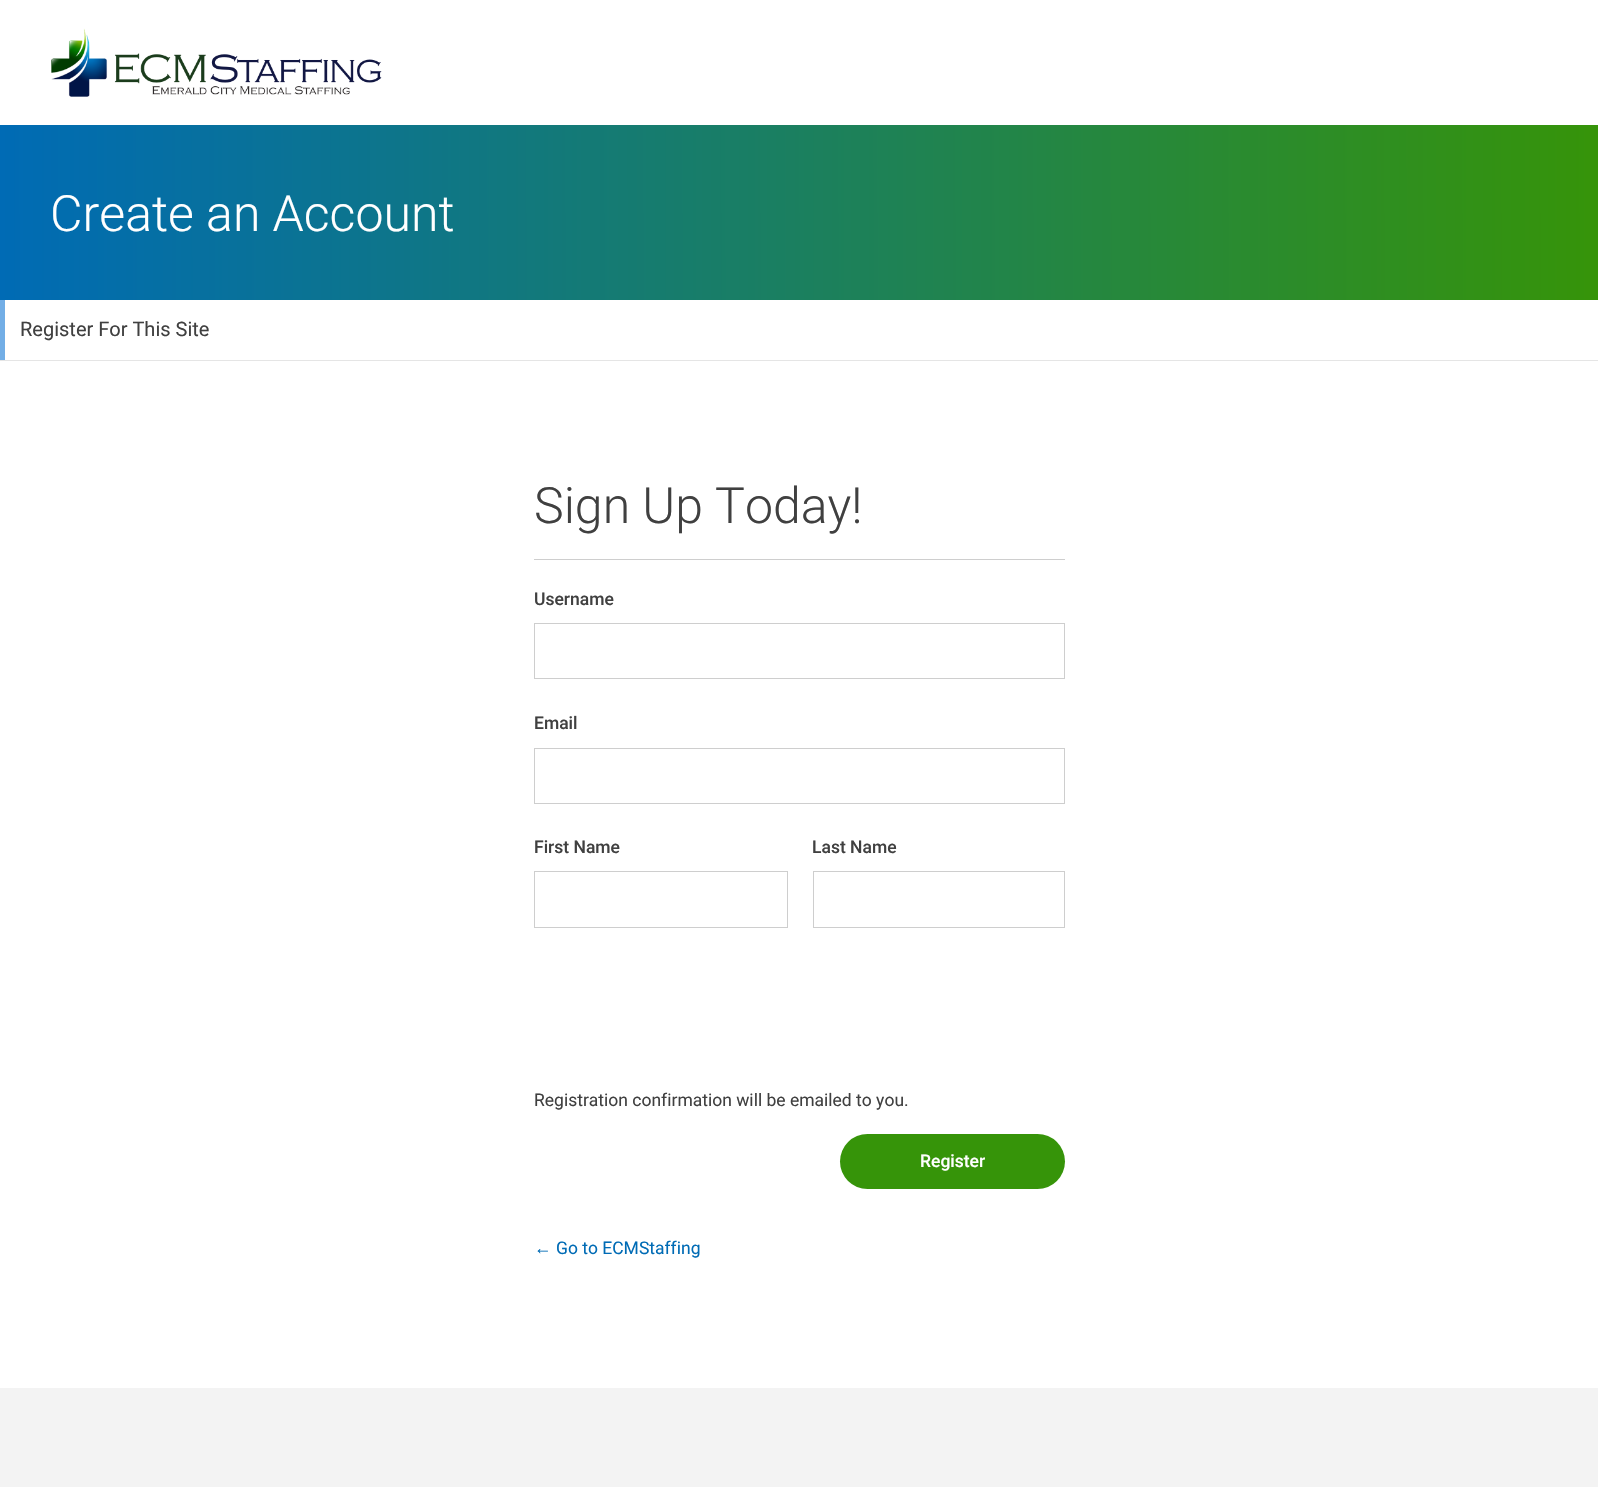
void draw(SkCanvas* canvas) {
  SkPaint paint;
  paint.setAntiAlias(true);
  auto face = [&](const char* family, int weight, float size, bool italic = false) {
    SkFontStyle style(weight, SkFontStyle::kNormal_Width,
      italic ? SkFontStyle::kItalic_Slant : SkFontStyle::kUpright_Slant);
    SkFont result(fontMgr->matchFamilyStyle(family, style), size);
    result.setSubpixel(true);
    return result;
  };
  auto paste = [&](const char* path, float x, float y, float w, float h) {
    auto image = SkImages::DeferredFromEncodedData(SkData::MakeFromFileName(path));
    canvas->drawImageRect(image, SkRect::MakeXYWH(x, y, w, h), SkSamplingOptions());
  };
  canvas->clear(0xfff3f3f3);
  paint.setColor(0xffffffff);
  canvas->drawRect(SkRect::MakeXYWH(0, 0, 1598, 1388), paint);
  canvas->save();
  canvas->clipRect(SkRect::MakeXYWH(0, 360, 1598, 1));
  paint.setColor(0x1a000000);
  paint.setMaskFilter(SkMaskFilter::MakeBlur(kNormal_SkBlurStyle, 0.5f));
  canvas->drawRect(SkRect::MakeXYWH(0, 301, 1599, 60), paint);
  paint.setMaskFilter(nullptr);
  canvas->restore();
  {
    const SkColor colors[] = {0xff006bb5, 0xff369409};
    const float stops[] = {0, 1};
    const SkPoint ends[] = {{0, 213}, {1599, 212}};
    paint.setShader(SkGradientShader::MakeLinear(ends, colors, stops, 2, SkTileMode::kClamp));
    paint.setAlpha(255);
  }
  canvas->drawRect(SkRect::MakeXYWH(0, 125, 1598, 175), paint);
  paste("img/1.png", 51, 28, 331, 69);
  paint.setShader(nullptr);
  paint.setColor(0xff72aee6);
  canvas->drawRect(SkRect::MakeXYWH(0, 300, 5, 60), paint);
  paint.setColor(0xffcecece);
  canvas->drawRect(SkRect::MakeXYWH(534, 559, 531, 1), paint);
  paint.setStroke(true);
  paint.setStrokeWidth(1);
  canvas->drawRect(SkRect::MakeXYWH(534.5f, 623.5f, 530, 55), paint);
  canvas->drawRect(SkRect::MakeXYWH(534.5f, 748.5f, 530, 55), paint);
  canvas->drawRect(SkRect::MakeXYWH(534.5f, 871.5f, 253, 56), paint);
  canvas->drawRect(SkRect::MakeXYWH(813.5f, 871.5f, 251, 56), paint);
  paint.setStroke(false);
  paint.setColor(0xff369409);
  canvas->drawRoundRect(SkRect::MakeXYWH(840, 1134, 225, 55), 27.5f, 27.5f, paint);
  auto f0 = face("Roboto", 300, 50);
  paint.setColor(0xffffffff);
  canvas->drawString("Create an Account", 50, 231, f0, paint);
  auto f1 = face("Roboto", 400, 20);
  paint.setColor(0xff404040);
  canvas->drawString("Register For This Site", 20, 336, f1, paint);
  canvas->drawString("Sign Up Today!", 534, 523, f0, paint);
  auto f2 = face("Roboto", 500, 17.5f);
  {
    const struct { const char* s; float x, y; } items[] = {
      {"Username", 534, 605},
      {"Email", 534, 729},
      {"First Name", 534, 853},
      {"Last Name", 812, 853},
    };
    for (auto [s, x, y] : items) {
      canvas->drawString(s, x, y, f2, paint);
    }
  }
  auto f3 = face("Roboto", 400, 17.5f);
  canvas->drawString("Registration confirmation will be emailed to you.", 534, 1106, f3, paint);
  paint.setColor(0xffffffff);
  canvas->drawString("Register", 920, 1167, f2, paint);
  auto f4 = face("Liberation Sans", 400, 17.5f);
  paint.setColor(0xff006bb5);
  canvas->drawString("←", 534, 1254, f4, paint);
  canvas->drawString("Go to ECMStaffing", 556, 1254, f3, paint);
}
